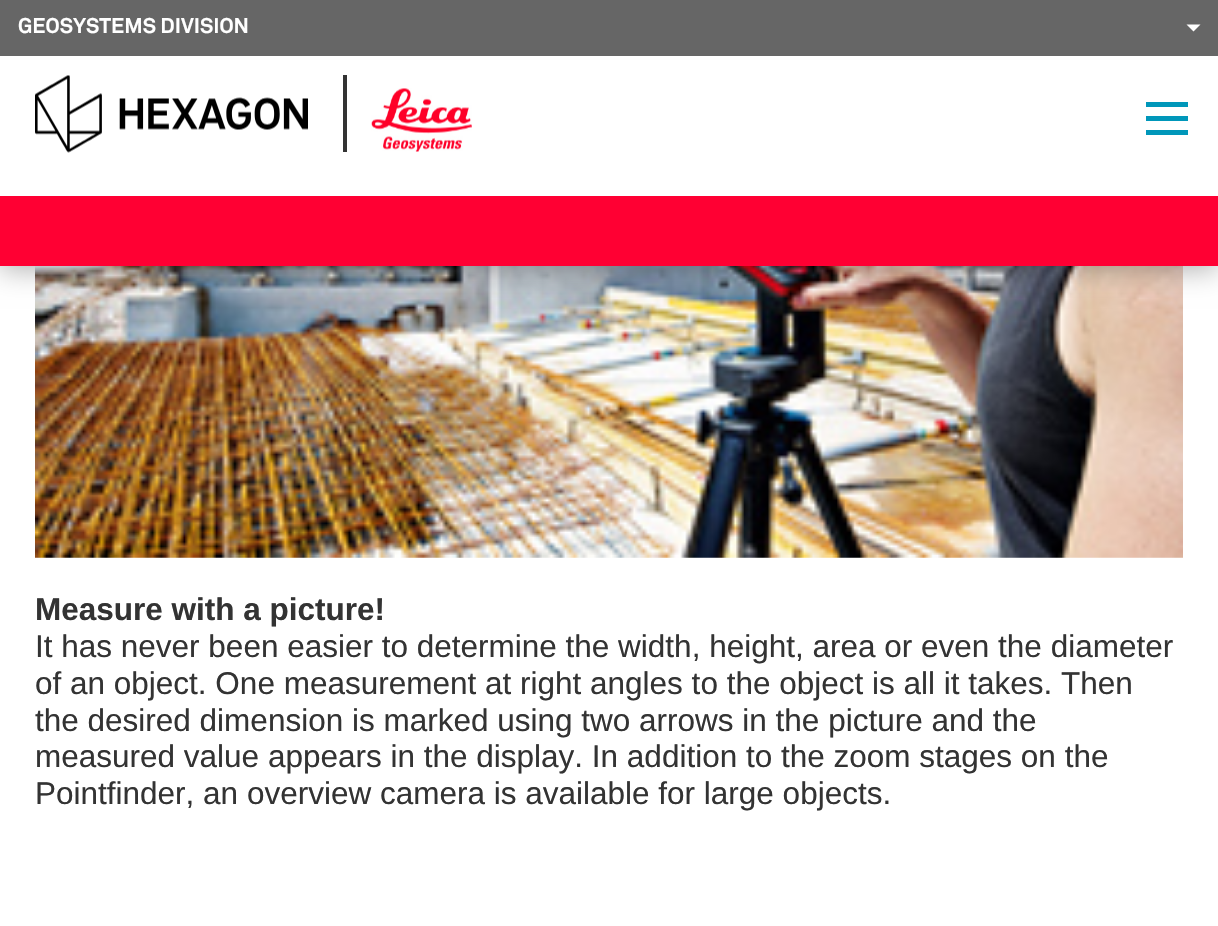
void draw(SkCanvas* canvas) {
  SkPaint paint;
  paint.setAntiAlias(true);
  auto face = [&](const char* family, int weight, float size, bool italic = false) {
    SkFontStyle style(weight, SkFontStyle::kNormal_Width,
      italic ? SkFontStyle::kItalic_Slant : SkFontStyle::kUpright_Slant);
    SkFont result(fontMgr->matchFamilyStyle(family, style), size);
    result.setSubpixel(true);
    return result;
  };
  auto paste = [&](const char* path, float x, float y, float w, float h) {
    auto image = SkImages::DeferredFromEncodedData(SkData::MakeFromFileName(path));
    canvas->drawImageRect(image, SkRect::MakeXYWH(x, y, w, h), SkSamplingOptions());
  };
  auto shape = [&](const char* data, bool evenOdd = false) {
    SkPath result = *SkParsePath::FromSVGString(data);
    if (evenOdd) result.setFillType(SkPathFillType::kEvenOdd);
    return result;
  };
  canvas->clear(0xffffffff);
  paste("img/3.png", 35, 266, 1148, 292);
  paint.setColor(0x4d000000);
  paint.setMaskFilter(SkMaskFilter::MakeBlur(kNormal_SkBlurStyle, 13));
  canvas->drawRect(SkRect::MakeXYWH(0, 4, 1218, 266), paint);
  paint.setMaskFilter(nullptr);
  paint.setColor(0xffffffff);
  canvas->drawRect(SkRect::MakeXYWH(0, 56, 1218, 140), paint);
  paint.setColor(0xff666666);
  canvas->drawRect(SkRect::MakeXYWH(0, 0, 1218, 56), paint);
  paint.setColor(0xffffffff);
  canvas->drawPath(shape("M1186.5 24.5H1200.5L1193.5 31.5Z"), paint);
  paint.setColor(0xff333333);
  canvas->drawRect(SkRect::MakeXYWH(343, 75, 4, 77), paint);
  paste("img/1.png", 35, 75, 273, 78);
  paste("img/2.png", 371, 88, 101, 64);
  {
    const struct { float x, y, w, h; SkColor color; } items[] = {
      {1146, 102, 42, 5, 0xff0097ba},
      {1146, 116, 42, 5, 0xff0097ba},
      {1146, 130, 42, 5, 0xff0097ba},
      {0, 196, 1218, 70, 0xffff0033},
    };
    for (auto [x, y, w, h, color] : items) {
      paint.setColor(color);
      canvas->drawRect(SkRect::MakeXYWH(x, y, w, h), paint);
    }
  }
  auto f0 = face("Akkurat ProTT", 700, 21);
  paint.setColor(0xffffffff);
  canvas->drawString("GEOSYSTEMS DIVISION", 18, 33, f0, paint);
  auto f1 = face("Liberation Sans", 700, 31.5f);
  paint.setColor(0xff333333);
  canvas->drawString("Measure with a picture!", 35, 620, f1, paint);
  auto f2 = face("Liberation Sans", 400, 31.5f);
  {
    const struct { const char* s; float x, y; } items[] = {
      {"It has never been easier to determine the width, height, area or even the diameter", 35, 657},
      {"of an object. One measurement at right angles to the object is all it takes. Then", 35, 694},
      {"the desired dimension is marked using two arrows in the picture and the", 35, 731},
      {"measured value appears in the display. In addition to the zoom stages on the", 35, 767},
      {"Pointfinder, an overview camera is available for large objects.", 35, 804},
    };
    for (auto [s, x, y] : items) {
      canvas->drawString(s, x, y, f2, paint);
    }
  }
}
